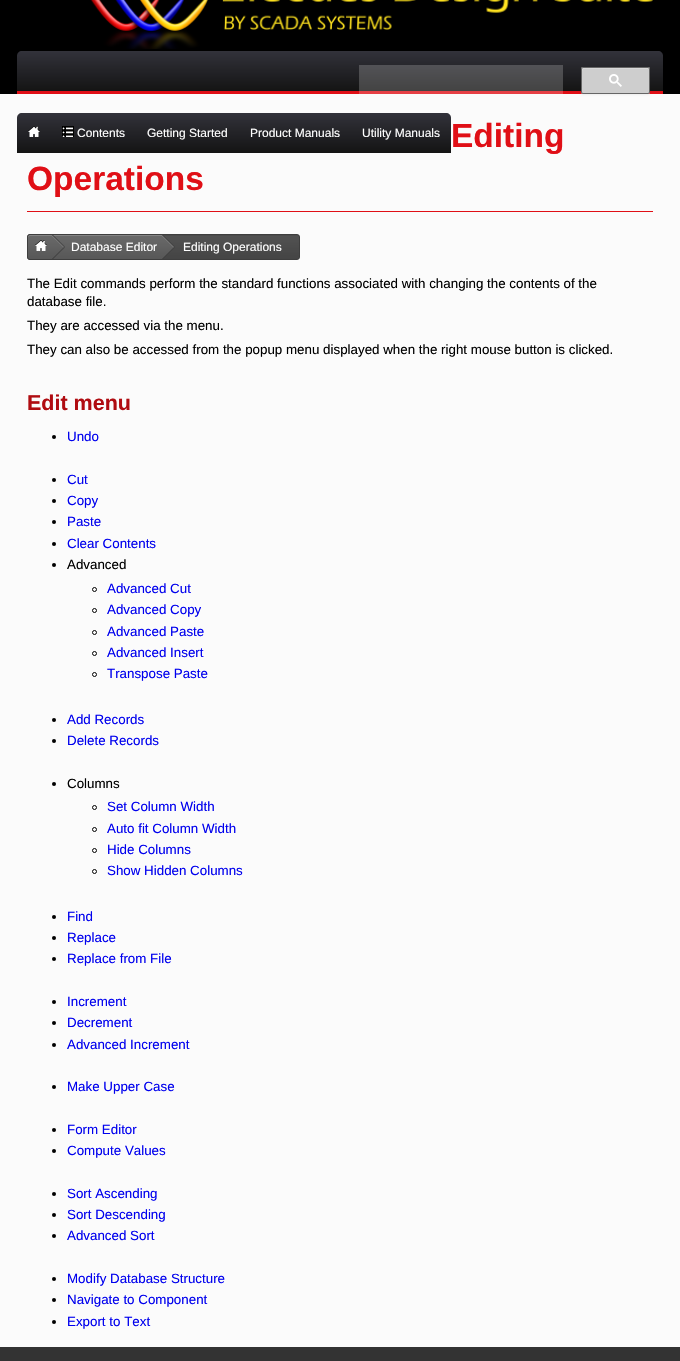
void draw(SkCanvas* canvas) {
  SkPaint paint;
  paint.setAntiAlias(true);
  auto face = [&](const char* family, int weight, float size, bool italic = false) {
    SkFontStyle style(weight, SkFontStyle::kNormal_Width,
      italic ? SkFontStyle::kItalic_Slant : SkFontStyle::kUpright_Slant);
    SkFont result(fontMgr->matchFamilyStyle(family, style), size);
    result.setSubpixel(true);
    return result;
  };
  auto paste = [&](const char* path, float x, float y, float w, float h) {
    auto image = SkImages::DeferredFromEncodedData(SkData::MakeFromFileName(path));
    canvas->drawImageRect(image, SkRect::MakeXYWH(x, y, w, h), SkSamplingOptions());
  };
  auto shape = [&](const char* data, bool evenOdd = false) {
    SkPath result = *SkParsePath::FromSVGString(data);
    if (evenOdd) result.setFillType(SkPathFillType::kEvenOdd);
    return result;
  };
  canvas->clear(0xff333333);
  paint.setColor(0xfffbfbfb);
  canvas->drawRect(SkRect::MakeXYWH(0, 94, 680, 1253), paint);
  paint.setColor(0xffe00f16);
  canvas->drawRect(SkRect::MakeXYWH(27, 211, 626, 1), paint);
  paste("img/1.png", 27, 234, 17, 26);
  paste("img/4.png", 44, 234, 119, 26);
  paste("img/2.png", 52, 235, 13, 24);
  paste("img/3.png", 35, 240, 12, 11);
  paste("img/6.png", 163, 234, 137, 26);
  paste("img/5.png", 162, 235, 13, 24);
  paint.setColor(0xff000000);
  canvas->drawCircle(54, 437, 2, paint);
  canvas->drawCircle(54, 480, 2, paint);
  canvas->drawCircle(54, 501, 2, paint);
  canvas->drawCircle(54, 522, 2, paint);
  canvas->drawCircle(54, 544, 2, paint);
  canvas->drawCircle(54, 565, 2, paint);
  paint.setStroke(true);
  paint.setStrokeWidth(1);
  canvas->drawCircle(94.5f, 589.5f, 2, paint);
  canvas->drawCircle(94.5f, 610.5f, 2, paint);
  canvas->drawCircle(94.5f, 632.5f, 2, paint);
  canvas->drawCircle(94.5f, 653.5f, 2, paint);
  canvas->drawCircle(94.5f, 674.5f, 2, paint);
  paint.setStroke(false);
  canvas->drawCircle(54, 720, 2, paint);
  canvas->drawCircle(54, 741, 2, paint);
  canvas->drawCircle(54, 784, 2, paint);
  paint.setStroke(true);
  canvas->drawCircle(94.5f, 807.5f, 2, paint);
  canvas->drawCircle(94.5f, 829.5f, 2, paint);
  canvas->drawCircle(94.5f, 850.5f, 2, paint);
  canvas->drawCircle(94.5f, 871.5f, 2, paint);
  paint.setStroke(false);
  canvas->drawCircle(54, 917, 2, paint);
  canvas->drawCircle(54, 938, 2, paint);
  canvas->drawCircle(54, 959, 2, paint);
  canvas->drawCircle(54, 1002, 2, paint);
  canvas->drawCircle(54, 1023, 2, paint);
  canvas->drawCircle(54, 1045, 2, paint);
  canvas->drawCircle(54, 1087, 2, paint);
  canvas->drawCircle(54, 1130, 2, paint);
  canvas->drawCircle(54, 1151, 2, paint);
  canvas->drawCircle(54, 1194, 2, paint);
  canvas->drawCircle(54, 1215, 2, paint);
  canvas->drawCircle(54, 1236, 2, paint);
  canvas->drawCircle(54, 1279, 2, paint);
  canvas->drawCircle(54, 1300, 2, paint);
  canvas->drawCircle(54, 1322, 2, paint);
  canvas->drawRect(SkRect::MakeXYWH(0, 0, 680, 94), paint);
  paste("img/7.png", 90, 0, 563, 49);
  {
    const SkColor colors[] = {0xff32323a, 0xff141414};
    const float stops[] = {0, 1};
    const SkPoint ends[] = {{340, 51}, {340, 91}};
    paint.setShader(SkGradientShader::MakeLinear(ends, colors, stops, 2, SkTileMode::kClamp));
    paint.setAlpha(255);
  }
  canvas->drawPath(shape("M22 51H658C661 51 663 53 663 56V91H17V56C17 53 19 51 22 51Z"), paint);
  paint.setShader(nullptr);
  paint.setColor(0xffe00f16);
  canvas->drawRect(SkRect::MakeXYWH(17, 91, 646, 3), paint);
  paint.setColor(0x0d000000);
  paint.setMaskFilter(SkMaskFilter::MakeBlur(kNormal_SkBlurStyle, 1));
  canvas->drawRoundRect(SkRect::MakeXYWH(581, 68, 69, 27), 2, 2, paint);
  paint.setMaskFilter(nullptr);
  paint.setColor(0xffcecece);
  canvas->drawRoundRect(SkRect::MakeXYWH(581, 67, 69, 27), 2, 2, paint);
  paint.setColor(0xffd8d8d8);
  canvas->drawPath(shape("M583 69H649L648 68H594C584 68 582 65 582 72ZM582 93V89Z", true), paint);
  paint.setStroke(true);
  paint.setColor(0xff666666);
  canvas->drawRoundRect(SkRect::MakeXYWH(581.5f, 67.5f, 68, 26), 1.5f, 1.5f, paint);
  paste("img/8.png", 609, 74, 13, 13);
  paint.setStroke(false);
  {
    const SkColor colors[] = {0xff5b5b61, 0xff434343};
    const float stops[] = {0, 1};
    const SkPoint ends[] = {{340, 51}, {340, 91}};
    paint.setShader(SkGradientShader::MakeLinear(ends, colors, stops, 2, SkTileMode::kClamp));
    paint.setAlpha(255);
  }
  canvas->drawRect(SkRect::MakeXYWH(359, 65, 204, 26), paint);
  paint.setShader(nullptr);
  paint.setColor(0xffe63f45);
  canvas->drawRect(SkRect::MakeXYWH(359, 91, 204, 3), paint);
  {
    const SkColor colors[] = {0xff32323a, 0xff141414};
    const float stops[] = {0, 1};
    const SkPoint ends[] = {{34, 113}, {34, 153}};
    paint.setShader(SkGradientShader::MakeLinear(ends, colors, stops, 2, SkTileMode::kClamp));
    paint.setAlpha(255);
  }
  canvas->drawPath(shape("M22 113H51V153H17V118C17 115 19 113 22 113Z"), paint);
  paste("img/9.png", 28, 126, 12, 11);
  {
    const SkColor colors[] = {0xff32323a, 0xff141414};
    const float stops[] = {0, 1};
    const SkPoint ends[] = {{94, 113}, {94, 153}};
    paint.setShader(SkGradientShader::MakeLinear(ends, colors, stops, 2, SkTileMode::kClamp));
    paint.setAlpha(255);
  }
  canvas->drawRect(SkRect::MakeXYWH(51, 113, 85, 40), paint);
  paste("img/10.png", 62, 126, 12, 11);
  {
    const SkColor colors[] = {0xff32323a, 0xff141414};
    const float stops[] = {0, 1};
    const SkPoint ends[] = {{188, 113}, {188, 153}};
    paint.setShader(SkGradientShader::MakeLinear(ends, colors, stops, 2, SkTileMode::kClamp));
    paint.setAlpha(255);
  }
  canvas->drawRect(SkRect::MakeXYWH(136, 113, 103, 40), paint);
  {
    const SkColor colors[] = {0xff32323a, 0xff141414};
    const float stops[] = {0, 1};
    const SkPoint ends[] = {{295, 113}, {295, 153}};
    paint.setShader(SkGradientShader::MakeLinear(ends, colors, stops, 2, SkTileMode::kClamp));
    paint.setAlpha(255);
  }
  canvas->drawRect(SkRect::MakeXYWH(239, 113, 112, 40), paint);
  {
    const SkColor colors[] = {0xff32323a, 0xff141414};
    const float stops[] = {0, 1};
    const SkPoint ends[] = {{401, 113}, {401, 153}};
    paint.setShader(SkGradientShader::MakeLinear(ends, colors, stops, 2, SkTileMode::kClamp));
    paint.setAlpha(255);
  }
  canvas->drawPath(shape("M351 113H446C449 113 451 115 451 118V153H351Z"), paint);
  auto f0 = face("Liberation Sans", 700, 33.5f);
  paint.setShader(nullptr);
  paint.setColor(0xffe00f16);
  canvas->drawString("Editing", 451, 147, f0, paint);
  canvas->drawString("Operations", 27, 190, f0, paint);
  auto f1 = face("Liberation Sans", 400, 12);
  paint.setColor(0xffffffff);
  canvas->drawString("Database Editor", 71, 251, f1, paint);
  canvas->drawString("Editing Operations", 183, 251, f1, paint);
  auto f2 = face("Liberation Sans", 400, 13.35f);
  paint.setColor(0xff000000);
  {
    const struct { const char* s; float x, y; } items[] = {
      {"The Edit commands perform the standard functions associated with changing the contents of the", 27, 288},
      {"database file.", 27, 306},
      {"They are accessed via the menu.", 27, 330},
      {"They can also be accessed from the popup menu displayed when the right mouse button is clicked.", 27, 354},
    };
    for (auto [s, x, y] : items) {
      canvas->drawString(s, x, y, f2, paint);
    }
  }
  auto f3 = face("Liberation Sans", 700, 21.5f);
  paint.setColor(0xffb00c11);
  canvas->drawString("Edit menu", 27, 410, f3, paint);
  paint.setColor(0xff0000ee);
  {
    const struct { const char* s; float x, y; } items[] = {
      {"Undo", 67, 441},
      {"Cut", 67, 484},
      {"Copy", 67, 505},
      {"Paste", 67, 526},
      {"Clear Contents", 67, 548},
    };
    for (auto [s, x, y] : items) {
      canvas->drawString(s, x, y, f2, paint);
    }
  }
  paint.setColor(0xff000000);
  canvas->drawString("Advanced", 67, 569, f2, paint);
  paint.setColor(0xff0000ee);
  {
    const struct { const char* s; float x, y; } items[] = {
      {"Advanced Cut", 107, 593},
      {"Advanced Copy", 107, 614},
      {"Advanced Paste", 107, 636},
      {"Advanced Insert", 107, 657},
      {"Transpose Paste", 107, 678},
      {"Add Records", 67, 724},
      {"Delete Records", 67, 745},
    };
    for (auto [s, x, y] : items) {
      canvas->drawString(s, x, y, f2, paint);
    }
  }
  paint.setColor(0xff000000);
  canvas->drawString("Columns", 67, 788, f2, paint);
  paint.setColor(0xff0000ee);
  {
    const struct { const char* s; float x, y; } items[] = {
      {"Set Column Width", 107, 811},
      {"Auto fit Column Width", 107, 833},
      {"Hide Columns", 107, 854},
      {"Show Hidden Columns", 107, 875},
      {"Find", 67, 921},
      {"Replace", 67, 942},
      {"Replace from File", 67, 963},
      {"Increment", 67, 1006},
      {"Decrement", 67, 1027},
      {"Advanced Increment", 67, 1049},
      {"Make Upper Case", 67, 1091},
      {"Form Editor", 67, 1134},
      {"Compute Values", 67, 1155},
      {"Sort Ascending", 67, 1198},
      {"Sort Descending", 67, 1219},
      {"Advanced Sort", 67, 1240},
      {"Modify Database Structure", 67, 1283},
      {"Navigate to Component", 67, 1304},
      {"Export to Text", 67, 1326},
    };
    for (auto [s, x, y] : items) {
      canvas->drawString(s, x, y, f2, paint);
    }
  }
  paint.setColor(0xffffffff);
  {
    const struct { const char* s; float x, y; } items[] = {
      {"Contents", 77, 137},
      {"Getting Started", 147, 137},
      {"Product Manuals", 250, 137},
      {"Utility Manuals", 362, 137},
    };
    for (auto [s, x, y] : items) {
      canvas->drawString(s, x, y, f1, paint);
    }
  }
}
